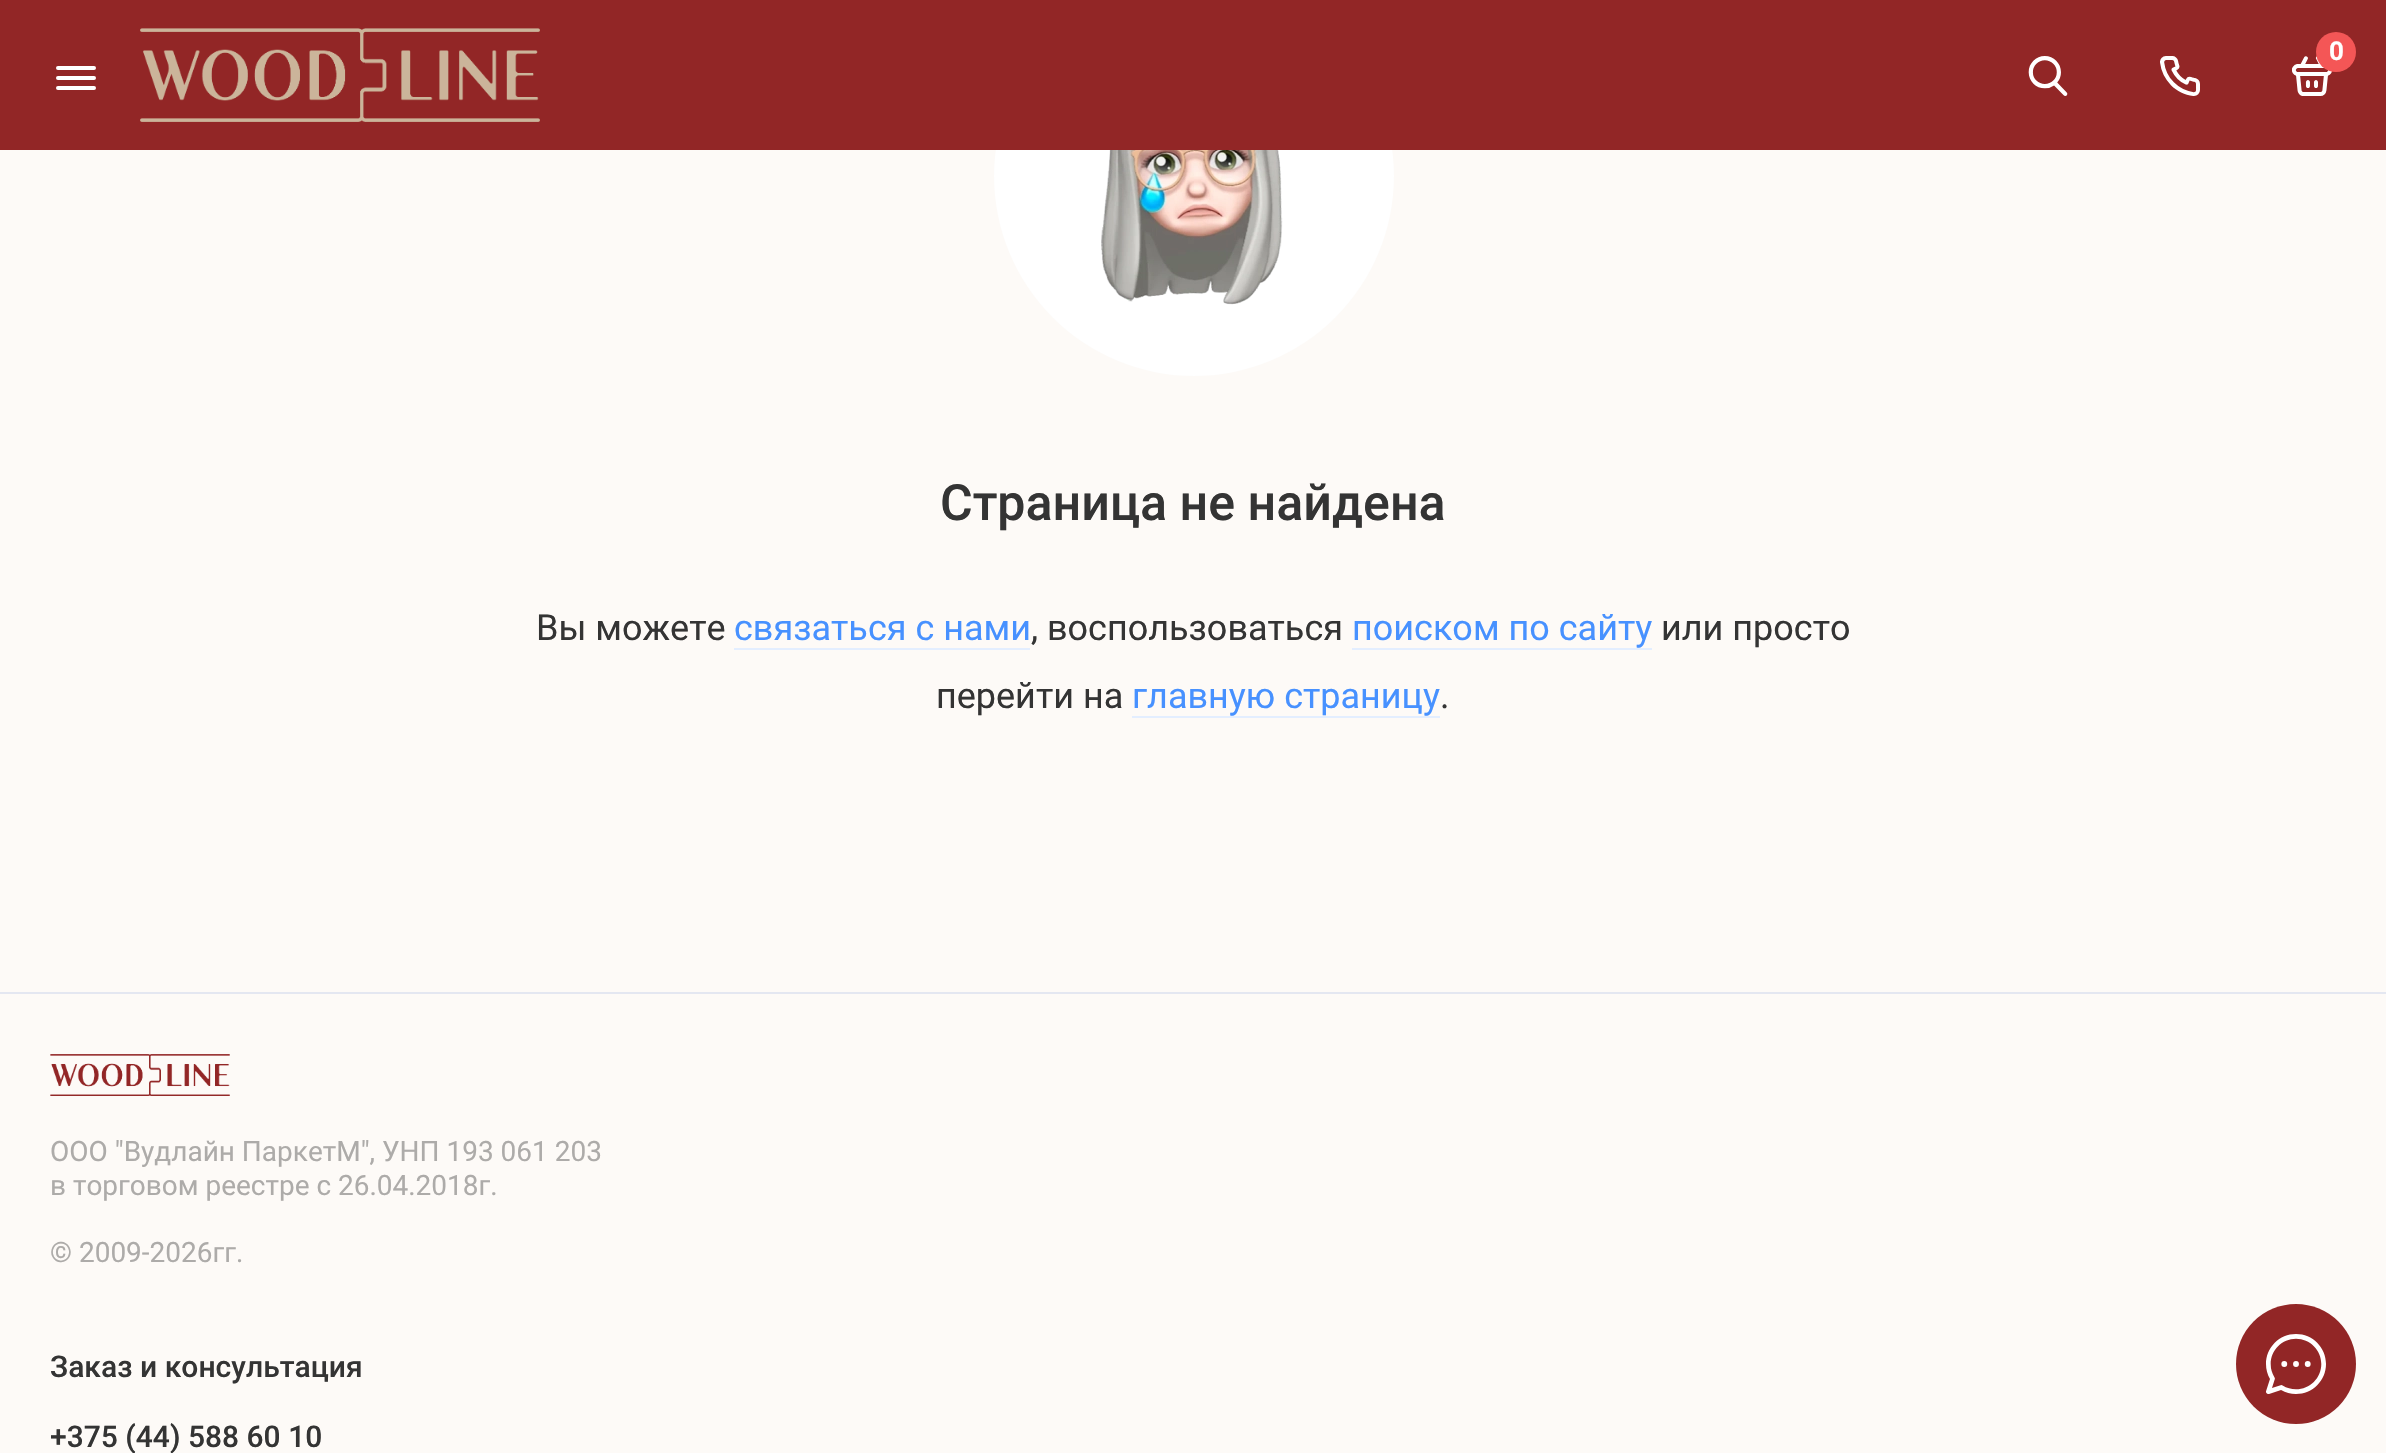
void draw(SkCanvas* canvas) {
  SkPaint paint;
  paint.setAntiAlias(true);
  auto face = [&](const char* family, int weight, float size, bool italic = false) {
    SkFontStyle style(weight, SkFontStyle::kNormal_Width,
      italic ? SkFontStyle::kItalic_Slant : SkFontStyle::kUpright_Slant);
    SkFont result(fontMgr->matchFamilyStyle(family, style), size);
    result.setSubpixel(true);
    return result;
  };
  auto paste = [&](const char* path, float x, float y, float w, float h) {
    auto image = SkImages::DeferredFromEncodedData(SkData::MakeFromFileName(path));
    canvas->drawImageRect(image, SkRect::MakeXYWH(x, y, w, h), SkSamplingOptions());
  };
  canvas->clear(0xfffdfaf7);
  paint.setColor(0xffffffff);
  canvas->drawCircle(1194, 176, 200, paint);
  paint.setColor(0xff922626);
  canvas->drawRect(SkRect::MakeXYWH(0, 0, 2386, 150), paint);
  paste("img/1.png", 140, 28, 400, 94);
  paste("img/2.png", 2292, 56, 40, 40);
  paint.setColor(0xfff45656);
  canvas->drawCircle(2336, 52, 20, paint);
  paste("img/3.png", 2028, 56, 40, 40);
  paste("img/4.png", 2160, 56, 40, 40);
  paste("img/5.png", 56, 66, 40, 24);
  paint.setColor(0xff922626);
  canvas->drawCircle(2296, 1364, 60, paint);
  paste("img/6.png", 2266, 1334, 60, 60);
  paste("img/7.png", 1101, 150, 182, 155);
  {
    const struct { float x, y, w, h; SkColor color; } items[] = {
      {734, 648, 296, 2, 0xffe3eeff},
      {1352, 648, 300, 2, 0xffe3eeff},
      {1132, 716, 308, 2, 0xffe3eeff},
      {0, 992, 2386, 2, 0xffe4e7f1},
    };
    for (auto [x, y, w, h, color] : items) {
      paint.setColor(color);
      canvas->drawRect(SkRect::MakeXYWH(x, y, w, h), paint);
    }
  }
  paste("img/8.png", 50, 1054, 180, 42);
  auto f0 = face("Roboto", 700, 26);
  paint.setColor(0xffffffff);
  canvas->drawString("0", 2329, 60, f0, paint);
  auto f1 = face("Roboto", 500, 50);
  paint.setColor(0xff343434);
  canvas->drawString("Страница не найдена", 940, 520, f1, paint);
  auto f2 = face("Roboto", 400, 36);
  canvas->drawString("Вы можете", 536, 640, f2, paint);
  paint.setColor(0xff4791ff);
  canvas->drawString("связаться с нами", 734, 640, f2, paint);
  paint.setColor(0xff343434);
  canvas->drawString(", воспользоваться", 1031, 640, f2, paint);
  paint.setColor(0xff4791ff);
  canvas->drawString("поиском по сайту", 1352, 640, f2, paint);
  paint.setColor(0xff343434);
  canvas->drawString("или просто", 1661, 640, f2, paint);
  canvas->drawString("перейти на", 936, 708, f2, paint);
  paint.setColor(0xff4791ff);
  canvas->drawString("главную страницу", 1132, 708, f2, paint);
  paint.setColor(0xff343434);
  canvas->drawString(".", 1440, 708, f2, paint);
  auto f3 = face("Roboto", 400, 28);
  paint.setColor(0xffadaba9);
  {
    const struct { const char* s; float x, y; } items[] = {
      {"ООО \"Вудлайн ПаркетМ\", УНП 193 061 203", 50, 1161},
      {"в торговом реестре с 26.04.2018г.", 50, 1195},
      {"© 2009-2026гг.", 50, 1262},
    };
    for (auto [s, x, y] : items) {
      canvas->drawString(s, x, y, f3, paint);
    }
  }
  auto f4 = face("Roboto", 500, 30);
  paint.setColor(0xff343434);
  canvas->drawString("Заказ и консультация", 50, 1377, f4, paint);
  canvas->drawString("+375 (44) 588 60 10", 50, 1447, f4, paint);
}
